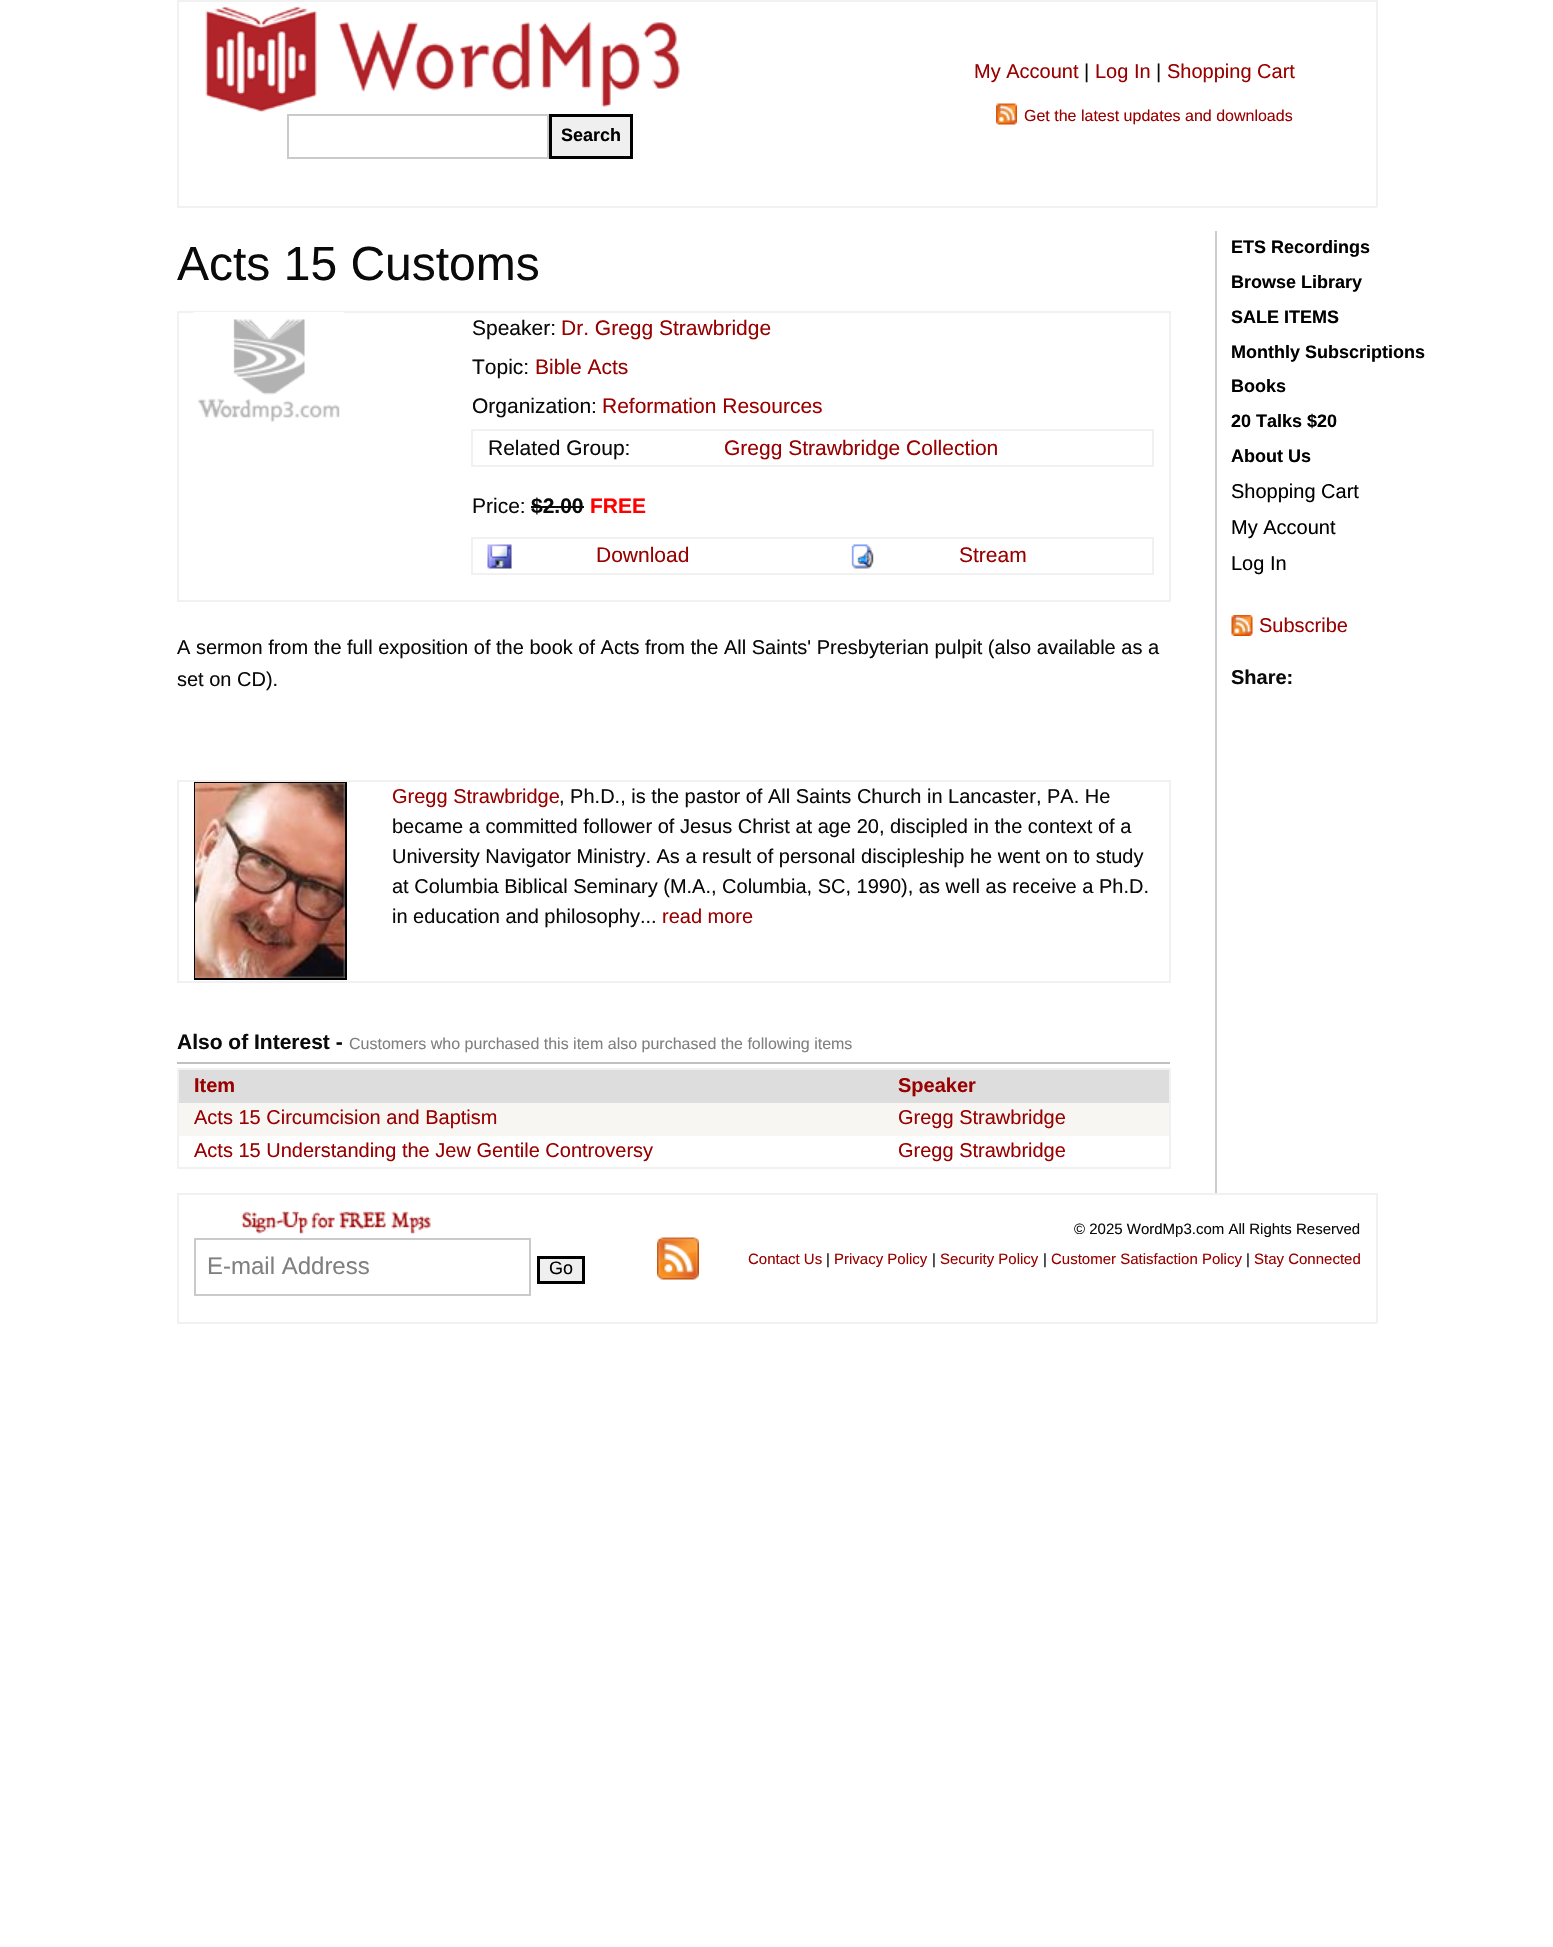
void draw(SkCanvas* canvas) {
  SkPaint paint;
  paint.setAntiAlias(true);
  auto face = [&](const char* family, int weight, float size, bool italic = false) {
    SkFontStyle style(weight, SkFontStyle::kNormal_Width,
      italic ? SkFontStyle::kItalic_Slant : SkFontStyle::kUpright_Slant);
    SkFont result(fontMgr->matchFamilyStyle(family, style), size);
    result.setSubpixel(true);
    return result;
  };
  auto paste = [&](const char* path, float x, float y, float w, float h) {
    auto image = SkImages::DeferredFromEncodedData(SkData::MakeFromFileName(path));
    canvas->drawImageRect(image, SkRect::MakeXYWH(x, y, w, h), SkSamplingOptions());
  };
  canvas->clear(0xffffffff);
  {
    const struct { float x, y, w, h; SkColor color; } items[] = {
      {177, 0, 1200, 2, 0xfff1f1f1},
      {1376, 0, 2, 207, 0xfff1f1f1},
      {177, 206, 1200, 2, 0xfff1f1f1},
      {177, 0, 2, 207, 0xfff1f1f1},
    };
    for (auto [x, y, w, h, color] : items) {
      paint.setColor(color);
      canvas->drawRect(SkRect::MakeXYWH(x, y, w, h), paint);
    }
  }
  paste("img/1.png", 996, 103, 21, 22);
  paste("img/2.png", 205, 6, 475, 106);
  paint.setStroke(true);
  paint.setStrokeWidth(2);
  paint.setColor(0xffcacaca);
  canvas->drawRect(SkRect::MakeXYWH(288, 115, 260, 43), paint);
  paint.setStroke(false);
  paint.setColor(0xffefefef);
  canvas->drawRect(SkRect::MakeXYWH(550.5f, 115.5f, 81, 42), paint);
  paint.setStroke(true);
  paint.setStrokeWidth(3);
  paint.setColor(0xff000000);
  canvas->drawRect(SkRect::MakeXYWH(550.5f, 115.5f, 81, 42), paint);
  paint.setStroke(false);
  {
    const struct { float x, y, w, h; SkColor color; } items[] = {
      {177, 311, 993, 2, 0xfff1f1f1},
      {1169, 311, 2, 291, 0xfff1f1f1},
      {177, 600, 993, 2, 0xfff1f1f1},
      {177, 311, 2, 291, 0xfff1f1f1},
    };
    for (auto [x, y, w, h, color] : items) {
      paint.setColor(color);
      canvas->drawRect(SkRect::MakeXYWH(x, y, w, h), paint);
    }
  }
  paste("img/3.png", 193, 312, 151, 110);
  {
    const struct { float x, y, w, h; SkColor color; } items[] = {
      {471, 429, 683, 2, 0xfff1f1f1},
      {1152, 429, 2, 38, 0xfff1f1f1},
      {471, 465, 683, 2, 0xfff1f1f1},
      {471, 429, 2, 38, 0xfff1f1f1},
      {531, 506, 53, 2, 0xff0a0a0a},
      {471, 537, 683, 2, 0xfff1f1f1},
      {1152, 537, 2, 38, 0xfff1f1f1},
      {471, 573, 683, 2, 0xfff1f1f1},
      {471, 537, 2, 38, 0xfff1f1f1},
    };
    for (auto [x, y, w, h, color] : items) {
      paint.setColor(color);
      canvas->drawRect(SkRect::MakeXYWH(x, y, w, h), paint);
    }
  }
  paste("img/4.png", 487, 544, 25, 25);
  paste("img/5.png", 851, 544, 23, 25);
  {
    const struct { float x, y, w, h; SkColor color; } items[] = {
      {177, 780, 993, 2, 0xfff1f1f1},
      {1169, 780, 2, 203, 0xfff1f1f1},
      {177, 981, 993, 2, 0xfff1f1f1},
      {177, 780, 2, 203, 0xfff1f1f1},
    };
    for (auto [x, y, w, h, color] : items) {
      paint.setColor(color);
      canvas->drawRect(SkRect::MakeXYWH(x, y, w, h), paint);
    }
  }
  paint.setStroke(true);
  paint.setStrokeWidth(2);
  paint.setColor(0xff000000);
  canvas->drawRect(SkRect::MakeXYWH(195, 783, 151, 196), paint);
  paste("img/6.png", 195, 783, 150, 195);
  paint.setStroke(false);
  {
    const struct { float x, y, w, h; SkColor color; } items[] = {
      {177, 1062, 993, 2, 0xffc0c0c0},
      {177, 1068, 993, 2, 0xfff1f1f1},
      {1169, 1068, 2, 101, 0xfff1f1f1},
      {177, 1167, 993, 2, 0xfff1f1f1},
      {177, 1068, 2, 101, 0xfff1f1f1},
      {179, 1070, 990, 33, 0xffdddddd},
      {179, 1103, 990, 33, 0xfff7f6f3},
      {1215, 231, 2, 962, 0xffcccccc},
    };
    for (auto [x, y, w, h, color] : items) {
      paint.setColor(color);
      canvas->drawRect(SkRect::MakeXYWH(x, y, w, h), paint);
    }
  }
  paste("img/7.png", 1231, 615, 22, 21);
  {
    const struct { float x, y, w, h; SkColor color; } items[] = {
      {177, 1193, 1200, 2, 0xfff1f1f1},
      {1376, 1193, 2, 130, 0xfff1f1f1},
      {177, 1322, 1200, 2, 0xfff1f1f1},
      {177, 1193, 2, 130, 0xfff1f1f1},
    };
    for (auto [x, y, w, h, color] : items) {
      paint.setColor(color);
      canvas->drawRect(SkRect::MakeXYWH(x, y, w, h), paint);
    }
  }
  paste("img/8.png", 241, 1211, 190, 23);
  paint.setStroke(true);
  paint.setColor(0xffcacaca);
  canvas->drawRect(SkRect::MakeXYWH(195, 1239, 335, 56), paint);
  paint.setStroke(false);
  paint.setColor(0xffefefef);
  canvas->drawRect(SkRect::MakeXYWH(538.5f, 1257.5f, 45, 25), paint);
  paint.setStroke(true);
  paint.setStrokeWidth(3);
  paint.setColor(0xff000000);
  canvas->drawRect(SkRect::MakeXYWH(538.5f, 1257.5f, 45, 25), paint);
  paste("img/9.png", 657, 1237, 42, 43);
  auto f0 = face("Liberation Sans", 400, 20);
  paint.setStroke(false);
  paint.setColor(0xff990000);
  canvas->drawString("My Account", 974, 78, f0, paint);
  paint.setColor(0xff0a0a0a);
  canvas->drawString("|", 1084, 78, f0, paint);
  paint.setColor(0xff990000);
  canvas->drawString("Log In", 1095, 78, f0, paint);
  paint.setColor(0xff0a0a0a);
  canvas->drawString("|", 1156, 78, f0, paint);
  paint.setColor(0xff990000);
  canvas->drawString("Shopping Cart", 1167, 78, f0, paint);
  auto f1 = face("Liberation Sans", 400, 16);
  canvas->drawString("Get the latest updates and downloads", 1024, 121, f1, paint);
  auto f2 = face("Liberation Sans", 700, 18);
  paint.setColor(0xff000000);
  canvas->drawString("Search", 561, 141, f2, paint);
  auto f3 = face("Liberation Sans", 400, 48);
  paint.setColor(0xff0a0a0a);
  canvas->drawString("Acts 15 Customs", 177, 280, f3, paint);
  auto f4 = face("Liberation Sans", 400, 21);
  canvas->drawString("Speaker:", 472, 335, f4, paint);
  paint.setColor(0xff990000);
  canvas->drawString("Dr. Gregg Strawbridge", 561, 335, f4, paint);
  paint.setColor(0xff0a0a0a);
  canvas->drawString("Topic:", 472, 374, f4, paint);
  paint.setColor(0xff990000);
  canvas->drawString("Bible Acts", 535, 374, f4, paint);
  paint.setColor(0xff0a0a0a);
  canvas->drawString("Organization:", 472, 413, f4, paint);
  paint.setColor(0xff990000);
  canvas->drawString("Reformation Resources", 602, 413, f4, paint);
  paint.setColor(0xff0a0a0a);
  canvas->drawString("Related Group:", 488, 455, f4, paint);
  paint.setColor(0xff990000);
  canvas->drawString("Gregg Strawbridge Collection", 724, 455, f4, paint);
  paint.setColor(0xff0a0a0a);
  canvas->drawString("Price:", 472, 513, f4, paint);
  auto f5 = face("Liberation Sans", 700, 21);
  canvas->drawString("$2.00", 531, 513, f5, paint);
  paint.setColor(0xffff0000);
  canvas->drawString("FREE", 590, 513, f5, paint);
  paint.setColor(0xff990000);
  canvas->drawString("Download", 596, 562, f4, paint);
  canvas->drawString("Stream", 959, 562, f4, paint);
  paint.setColor(0xff0a0a0a);
  canvas->drawString("A sermon from the full exposition of the book of Acts from the All Saints' Presbyterian pulpit (also available as a", 177, 654, f0, paint);
  canvas->drawString("set on CD).", 177, 686, f0, paint);
  paint.setColor(0xff990000);
  canvas->drawString("Gregg Strawbridge", 392, 803, f0, paint);
  paint.setColor(0xff0a0a0a);
  {
    const struct { const char* s; float x, y; } items[] = {
      {", Ph.D., is the pastor of All Saints Church in Lancaster, PA. He", 559, 803},
      {"became a committed follower of Jesus Christ at age 20, discipled in the context of a", 392, 833},
      {"University Navigator Ministry. As a result of personal discipleship he went on to study", 392, 863},
      {"at Columbia Biblical Seminary (M.A., Columbia, SC, 1990), as well as receive a Ph.D.", 392, 893},
      {"in education and philosophy...", 392, 923},
    };
    for (auto [s, x, y] : items) {
      canvas->drawString(s, x, y, f0, paint);
    }
  }
  paint.setColor(0xff990000);
  canvas->drawString("read more", 662, 923, f0, paint);
  paint.setColor(0xff0a0a0a);
  canvas->drawString("Also of Interest -", 177, 1049, f5, paint);
  paint.setColor(0xff808080);
  canvas->drawString("Customers who purchased this item also purchased the following items", 349, 1049, f1, paint);
  auto f6 = face("Liberation Sans", 700, 20);
  paint.setColor(0xff990000);
  canvas->drawString("Item", 194, 1092, f6, paint);
  canvas->drawString("Speaker", 898, 1092, f6, paint);
  {
    const struct { const char* s; float x, y; } items[] = {
      {"Acts 15 Circumcision and Baptism", 194, 1124},
      {"Gregg Strawbridge", 898, 1124},
      {"Acts 15 Understanding the Jew Gentile Controversy", 194, 1157},
      {"Gregg Strawbridge", 898, 1157},
    };
    for (auto [s, x, y] : items) {
      canvas->drawString(s, x, y, f0, paint);
    }
  }
  paint.setColor(0xff000000);
  {
    const struct { const char* s; float x, y; } items[] = {
      {"ETS Recordings", 1231, 253},
      {"Browse Library", 1231, 288},
      {"SALE ITEMS", 1231, 323},
      {"Monthly Subscriptions", 1231, 358},
      {"Books", 1231, 392},
      {"20 Talks $20", 1231, 427},
      {"About Us", 1231, 462},
    };
    for (auto [s, x, y] : items) {
      canvas->drawString(s, x, y, f2, paint);
    }
  }
  {
    const struct { const char* s; float x, y; } items[] = {
      {"Shopping Cart", 1231, 498},
      {"My Account", 1231, 534},
      {"Log In", 1231, 570},
    };
    for (auto [s, x, y] : items) {
      canvas->drawString(s, x, y, f0, paint);
    }
  }
  paint.setColor(0xff990000);
  canvas->drawString("Subscribe", 1259, 632, f0, paint);
  paint.setColor(0xff0a0a0a);
  canvas->drawString("Share:", 1231, 684, f6, paint);
  auto f7 = face("Liberation Sans", 400, 24);
  paint.setColor(0xff808080);
  canvas->drawString("E-mail Address", 207, 1274, f7, paint);
  auto f8 = face("Liberation Sans", 400, 18);
  paint.setColor(0xff000000);
  canvas->drawString("Go", 549, 1274, f8, paint);
  auto f9 = face("Liberation Sans", 400, 15);
  paint.setColor(0xff0a0a0a);
  canvas->drawString("© 2025 WordMp3.com All Rights Reserved", 1074, 1234, f9, paint);
  paint.setColor(0xff990000);
  canvas->drawString("Contact Us", 748, 1264, f9, paint);
  paint.setColor(0xff0a0a0a);
  canvas->drawString("|", 826, 1264, f9, paint);
  paint.setColor(0xff990000);
  canvas->drawString("Privacy Policy", 834, 1264, f9, paint);
  paint.setColor(0xff0a0a0a);
  canvas->drawString("|", 932, 1264, f9, paint);
  paint.setColor(0xff990000);
  canvas->drawString("Security Policy", 940, 1264, f9, paint);
  paint.setColor(0xff0a0a0a);
  canvas->drawString("|", 1043, 1264, f9, paint);
  paint.setColor(0xff990000);
  canvas->drawString("Customer Satisfaction Policy", 1051, 1264, f9, paint);
  paint.setColor(0xff0a0a0a);
  canvas->drawString("|", 1246, 1264, f9, paint);
  paint.setColor(0xff990000);
  canvas->drawString("Stay Connected", 1254, 1264, f9, paint);
}
